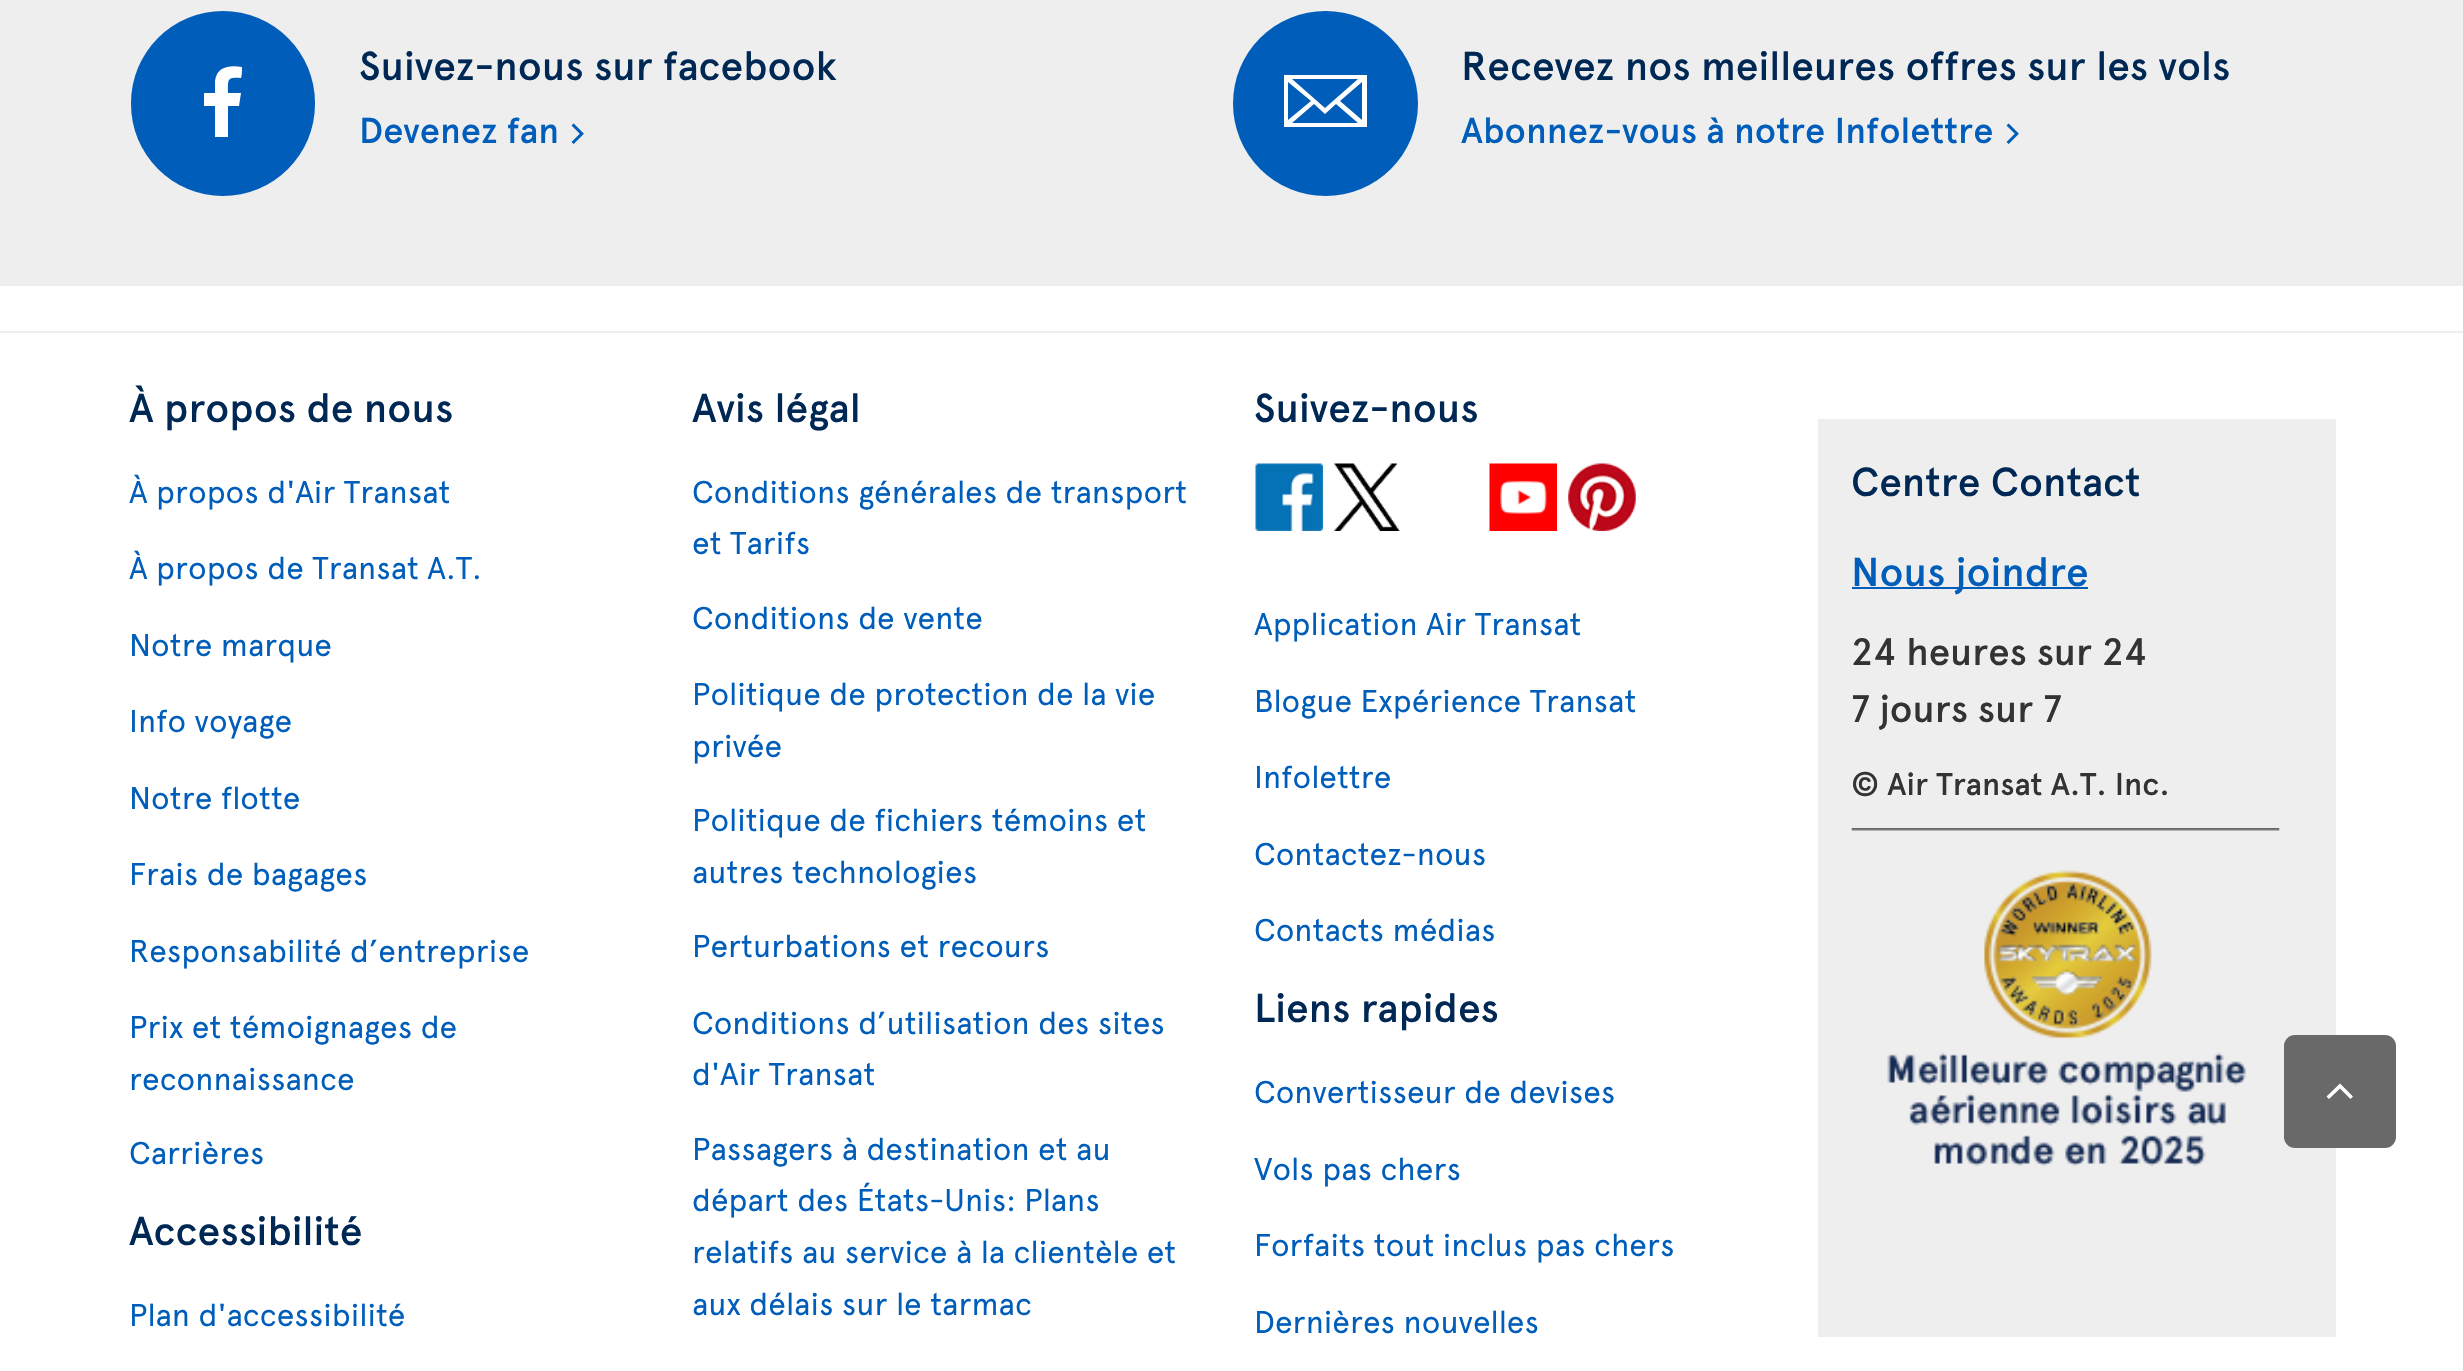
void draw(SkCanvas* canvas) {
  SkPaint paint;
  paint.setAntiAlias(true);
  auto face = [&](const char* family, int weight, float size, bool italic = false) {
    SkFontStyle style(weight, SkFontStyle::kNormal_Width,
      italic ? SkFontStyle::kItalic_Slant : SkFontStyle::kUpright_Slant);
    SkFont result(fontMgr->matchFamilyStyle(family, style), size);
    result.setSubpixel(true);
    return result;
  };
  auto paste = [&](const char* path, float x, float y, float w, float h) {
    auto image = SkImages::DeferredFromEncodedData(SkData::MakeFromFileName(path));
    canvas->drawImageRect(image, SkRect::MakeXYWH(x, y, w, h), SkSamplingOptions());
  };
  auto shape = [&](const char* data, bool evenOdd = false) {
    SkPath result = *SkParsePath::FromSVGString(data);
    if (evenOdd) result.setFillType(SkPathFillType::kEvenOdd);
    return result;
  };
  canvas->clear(0xffffffff);
  paint.setColor(0xffeeeeee);
  canvas->drawRect(SkRect::MakeXYWH(0, 0, 2463, 286), paint);
  paint.setColor(0xff005eba);
  canvas->drawRoundRect(SkRect::MakeXYWH(131, 11, 184, 185), 92, 92, paint);
  paint.setColor(0xffffffff);
  canvas->drawPath(shape("M239 106L241 93H228C228 79 227 77 241 78C242 76 242 70 242 67C230 65 217 66 215 81V93H204V106H215V137H228V106Z"), paint);
  paint.setColor(0xff005eba);
  canvas->drawCircle(1325.5f, 103.5f, 92.5f, paint);
  paint.setColor(0xffffffff);
  canvas->drawPath(shape("M1284 75V127H1367V75ZM1325 108L1292 79H1358ZM1311 101L1288 120V82ZM1314 104L1325 114L1336 104L1358 123H1292ZM1340 101L1362 82V120Z"), paint);
  paint.setColor(0xffeeeeee);
  canvas->drawRect(SkRect::MakeXYWH(0, 331, 2463, 2), paint);
  paste("img/1.png", 1255, 463, 68, 68);
  paste("img/2.png", 1334, 463, 66, 68);
  paste("img/3.png", 1489, 463, 68, 68);
  paste("img/4.png", 1568, 463, 68, 68);
  canvas->drawRect(SkRect::MakeXYWH(1818, 419, 518, 918), paint);
  paint.setColor(0xff005eba);
  canvas->drawRect(SkRect::MakeXYWH(1852, 587, 236, 2), paint);
  paste("img/5.png", 1851, 828, 429, 338);
  paint.setColor(0xff696969);
  canvas->drawRoundRect(SkRect::MakeXYWH(2284, 1035, 112, 113), 11, 11, paint);
  paint.setColor(0xffffffff);
  canvas->drawPath(shape("M2326.5 1096.5L2329 1099L2340 1088.5L2350.5 1099L2353 1096.5L2340 1083.5Z"), paint);
  auto f0 = face("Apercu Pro", 500, 40.5f);
  paint.setColor(0xff002855);
  canvas->drawString("Suivez-nous sur facebook", 359, 80, f0, paint);
  auto f1 = face("Apercu Pro", 500, 36);
  paint.setColor(0xff005eba);
  canvas->drawString("Devenez fan", 359, 143, f1, paint);
  auto f2 = face("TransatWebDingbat", 400, 31.5f);
  canvas->drawString(">", 570, 143, f2, paint);
  paint.setColor(0xff002855);
  canvas->drawString("Recevez nos meilleures offres sur les vols", 1461, 80, f0, paint);
  paint.setColor(0xff005eba);
  canvas->drawString("Abonnez-vous à notre Infolettre", 1461, 143, f1, paint);
  canvas->drawString(">", 2005, 143, f2, paint);
  paint.setColor(0xff002855);
  canvas->drawString("À propos de nous", 129, 422, f0, paint);
  auto f3 = face("Apercu Pro", 400, 31.5f);
  paint.setColor(0xff005eba);
  {
    const struct { const char* s; float x, y; } items[] = {
      {"À propos d'Air Transat", 129, 503},
      {"À propos de Transat A.T.", 129, 579},
      {"Notre marque", 129, 656},
      {"Info voyage", 129, 732},
      {"Notre flotte", 129, 809},
      {"Frais de bagages", 129, 885},
      {"Responsabilité d’entreprise", 129, 962},
      {"Prix et témoignages de", 129, 1038},
      {"reconnaissance", 129, 1090},
      {"Carrières", 129, 1164},
    };
    for (auto [s, x, y] : items) {
      canvas->drawString(s, x, y, f3, paint);
    }
  }
  paint.setColor(0xff002855);
  canvas->drawString("Accessibilité", 129, 1245, f0, paint);
  paint.setColor(0xff005eba);
  canvas->drawString("Plan d'accessibilité", 129, 1326, f3, paint);
  paint.setColor(0xff002855);
  canvas->drawString("Avis légal", 692, 422, f0, paint);
  paint.setColor(0xff005eba);
  {
    const struct { const char* s; float x, y; } items[] = {
      {"Conditions générales de transport", 692, 503},
      {"et Tarifs", 692, 554},
      {"Conditions de vente", 692, 629},
      {"Politique de protection de la vie", 692, 705},
      {"privée", 692, 757},
      {"Politique de fichiers témoins et", 692, 831},
      {"autres technologies", 692, 883},
      {"Perturbations et recours", 692, 957},
      {"Conditions d’utilisation des sites", 692, 1034},
      {"d'Air Transat", 692, 1085},
      {"Passagers à destination et au", 692, 1160},
      {"départ des États-Unis: Plans", 692, 1211},
      {"relatifs au service à la clientèle et", 692, 1263},
      {"aux délais sur le tarmac", 692, 1315},
    };
    for (auto [s, x, y] : items) {
      canvas->drawString(s, x, y, f3, paint);
    }
  }
  paint.setColor(0xff002855);
  canvas->drawString("Suivez-nous", 1254, 422, f0, paint);
  paint.setColor(0xff005eba);
  {
    const struct { const char* s; float x, y; } items[] = {
      {"Application Air Transat", 1254, 635},
      {"Blogue Expérience Transat", 1254, 712},
      {"Infolettre", 1254, 788},
      {"Contactez-nous", 1254, 865},
      {"Contacts médias", 1254, 941},
    };
    for (auto [s, x, y] : items) {
      canvas->drawString(s, x, y, f3, paint);
    }
  }
  paint.setColor(0xff002855);
  canvas->drawString("Liens rapides", 1254, 1022, f0, paint);
  paint.setColor(0xff005eba);
  {
    const struct { const char* s; float x, y; } items[] = {
      {"Convertisseur de devises", 1254, 1103},
      {"Vols pas chers", 1254, 1180},
      {"Forfaits tout inclus pas chers", 1254, 1256},
      {"Dernières nouvelles", 1254, 1333},
    };
    for (auto [s, x, y] : items) {
      canvas->drawString(s, x, y, f3, paint);
    }
  }
  paint.setColor(0xff002855);
  canvas->drawString("Centre Contact", 1851, 496, f0, paint);
  paint.setColor(0xff005eba);
  canvas->drawString("Nous joindre", 1851, 586, f0, paint);
  auto f4 = face("Apercu Pro", 500, 38.25f);
  paint.setColor(0xff333333);
  canvas->drawString("24 heures sur 24", 1851, 665, f4, paint);
  canvas->drawString("7 jours sur 7", 1851, 722, f4, paint);
  auto f5 = face("Apercu Pro", 500, 31.5f);
  canvas->drawString("© Air Transat A.T. Inc.", 1851, 795, f5, paint);
}
